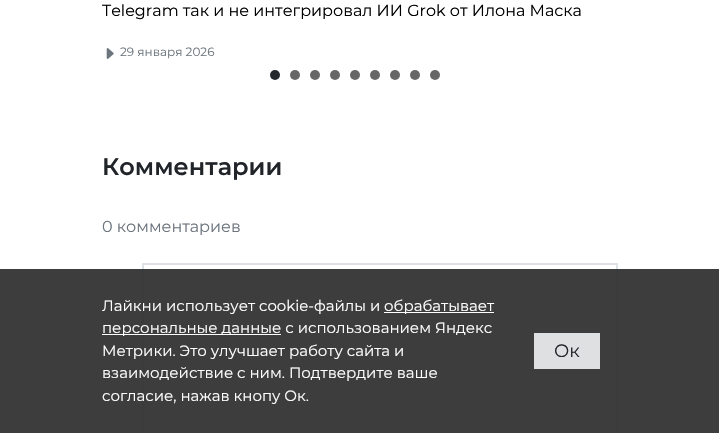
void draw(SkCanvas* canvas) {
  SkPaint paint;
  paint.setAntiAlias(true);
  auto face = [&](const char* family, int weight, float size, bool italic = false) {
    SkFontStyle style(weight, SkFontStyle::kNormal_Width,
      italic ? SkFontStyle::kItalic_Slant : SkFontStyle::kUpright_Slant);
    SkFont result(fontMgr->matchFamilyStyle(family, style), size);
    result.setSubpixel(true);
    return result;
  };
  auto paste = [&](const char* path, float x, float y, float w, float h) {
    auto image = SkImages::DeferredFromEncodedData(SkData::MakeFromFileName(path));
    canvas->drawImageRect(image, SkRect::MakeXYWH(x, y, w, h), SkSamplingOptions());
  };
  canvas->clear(0xffffffff);
  paste("img/1.png", 106, 48, 8, 11);
  paint.setColor(0xff23292d);
  canvas->drawCircle(275, 75, 5, paint);
  paint.setColor(0xff666666);
  canvas->drawCircle(295, 75, 5, paint);
  canvas->drawCircle(315, 75, 5, paint);
  canvas->drawCircle(335, 75, 5, paint);
  canvas->drawCircle(355, 75, 5, paint);
  canvas->drawCircle(375, 75, 5, paint);
  canvas->drawCircle(395, 75, 5, paint);
  canvas->drawCircle(415, 75, 5, paint);
  canvas->drawCircle(435, 75, 5, paint);
  paint.setStroke(true);
  paint.setStrokeWidth(2);
  paint.setColor(0xffdee2e6);
  canvas->drawRect(SkRect::MakeXYWH(143, 264, 474, 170), paint);
  paint.setStroke(false);
  {
    const struct { float x, y, w, h; SkColor color; } items[] = {
      {0, 269, 719, 164, 0xe6282828},
      {384, 312, 110, 1, 0xffffffff},
      {102, 334, 179, 1, 0xffffffff},
      {534, 333, 66, 36, 0xffdfe0e1},
    };
    for (auto [x, y, w, h, color] : items) {
      paint.setColor(color);
      canvas->drawRect(SkRect::MakeXYWH(x, y, w, h), paint);
    }
  }
  auto f0 = face("Montserrat", 400, 16);
  paint.setColor(0xff000000);
  canvas->drawString("Telegram так и не интегрировал ИИ Grok от Илона Маска", 102, 16, f0, paint);
  auto f1 = face("Montserrat", 400, 12);
  paint.setColor(0xff6c757d);
  canvas->drawString("29 января 2026", 120, 56, f1, paint);
  auto f2 = face("Montserrat", 600, 24);
  paint.setColor(0xff212529);
  canvas->drawString("Комментарии", 102, 175, f2, paint);
  paint.setColor(0xff6c757d);
  canvas->drawString("0 комментариев", 102, 232, f0, paint);
  auto f3 = face("Montserrat", 400, 15);
  paint.setColor(0xffffffff);
  {
    const struct { const char* s; float x, y; } items[] = {
      {"Лайкни использует cookie-файлы и", 102, 311},
      {"обрабатывает", 384, 311},
      {"персональные данные с использованием Яндекс", 102, 333},
      {"Метрики. Это улучшает работу сайта и", 102, 356},
      {"взаимодействие с ним. Подтвердите ваше", 102, 378},
      {"согласие, нажав кнопу Ок.", 102, 401},
    };
    for (auto [s, x, y] : items) {
      canvas->drawString(s, x, y, f3, paint);
    }
  }
  auto f4 = face("Montserrat", 400, 18);
  paint.setColor(0xff212529);
  canvas->drawString("Ок", 554, 357, f4, paint);
}
